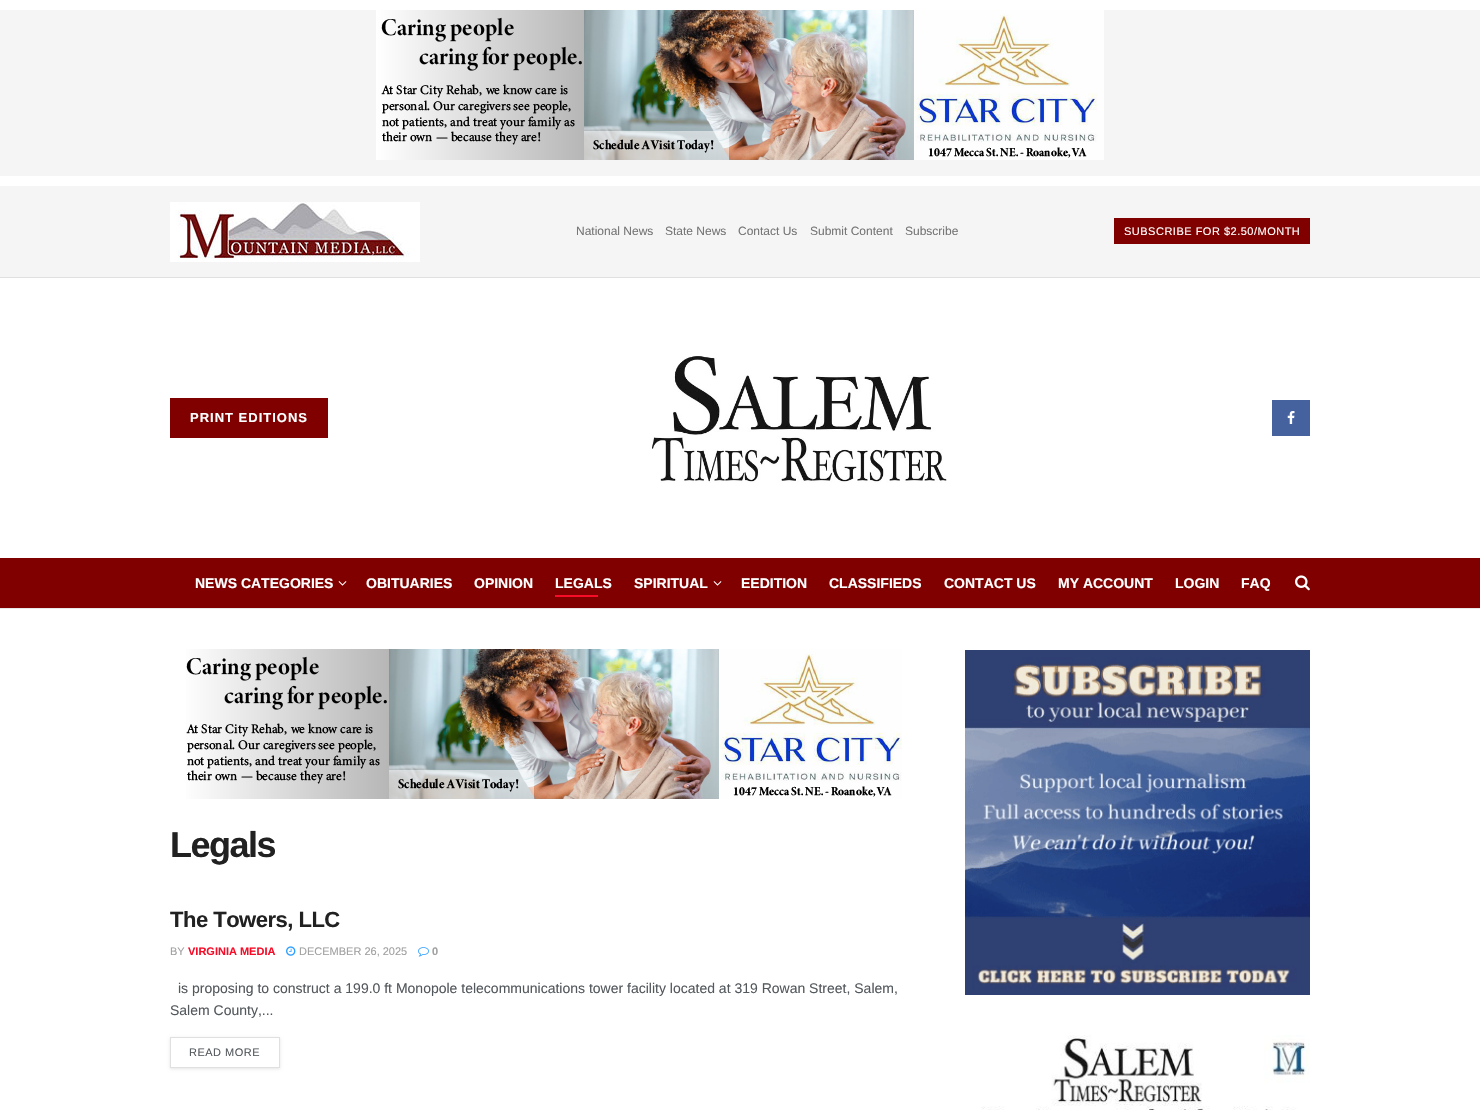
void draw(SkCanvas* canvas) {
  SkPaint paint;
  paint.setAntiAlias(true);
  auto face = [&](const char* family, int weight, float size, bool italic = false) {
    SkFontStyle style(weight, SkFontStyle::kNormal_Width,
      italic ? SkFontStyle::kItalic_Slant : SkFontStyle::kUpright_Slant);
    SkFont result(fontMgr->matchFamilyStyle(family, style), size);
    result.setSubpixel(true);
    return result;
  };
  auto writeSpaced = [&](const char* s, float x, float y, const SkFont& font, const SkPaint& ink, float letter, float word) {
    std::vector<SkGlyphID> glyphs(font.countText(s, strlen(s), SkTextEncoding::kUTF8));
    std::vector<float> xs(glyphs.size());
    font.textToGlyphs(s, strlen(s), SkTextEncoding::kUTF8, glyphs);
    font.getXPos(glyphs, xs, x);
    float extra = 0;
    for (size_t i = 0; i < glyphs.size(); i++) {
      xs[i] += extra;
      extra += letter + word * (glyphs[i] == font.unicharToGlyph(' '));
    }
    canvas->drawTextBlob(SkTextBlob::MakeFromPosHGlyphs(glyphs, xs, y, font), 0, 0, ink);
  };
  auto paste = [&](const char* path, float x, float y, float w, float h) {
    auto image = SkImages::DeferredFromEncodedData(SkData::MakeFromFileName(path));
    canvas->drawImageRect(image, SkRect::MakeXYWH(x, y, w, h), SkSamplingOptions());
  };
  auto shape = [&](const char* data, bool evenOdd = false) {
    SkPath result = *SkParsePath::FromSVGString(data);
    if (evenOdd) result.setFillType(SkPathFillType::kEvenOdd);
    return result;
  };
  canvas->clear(0xffffffff);
  paint.setColor(0xfff5f5f5);
  canvas->drawRect(SkRect::MakeXYWH(0, 10, 1480, 166), paint);
  paste("img/1.png", 376, 10, 728, 150);
  canvas->drawRect(SkRect::MakeXYWH(0, 186, 1480, 91), paint);
  paint.setColor(0xffe0e0e0);
  canvas->drawRect(SkRect::MakeXYWH(0, 277, 1480, 1), paint);
  paste("img/2.png", 170, 202, 250, 60);
  paint.setColor(0xff800000);
  canvas->drawRect(SkRect::MakeXYWH(1114, 218, 196, 26), paint);
  canvas->drawRect(SkRect::MakeXYWH(170, 398, 158, 40), paint);
  paste("img/3.png", 652, 356, 295, 127);
  paint.setColor(0xff45629f);
  canvas->drawRect(SkRect::MakeXYWH(1272, 400, 38, 36), paint);
  paste("img/4.png", 1287, 411, 8, 13);
  paint.setColor(0xff800000);
  canvas->drawRect(SkRect::MakeXYWH(0, 558, 1480, 50), paint);
  paint.setColor(0xffe8e8e8);
  canvas->drawRect(SkRect::MakeXYWH(0, 608, 1480, 1), paint);
  paste("img/5.png", 338, 581, 9, 5);
  paint.setColor(0xfff70d28);
  canvas->drawRect(SkRect::MakeXYWH(555, 595, 43, 2), paint);
  paste("img/5.png", 713, 581, 9, 5);
  paste("img/6.png", 1295, 575, 15, 16);
  paste("img/7.png", 186, 649, 716, 150);
  paste("img/8.png", 286, 946, 10, 10);
  paste("img/9.png", 418, 947, 11, 10);
  canvas->save();
  canvas->clipPath(shape("M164 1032H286V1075H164ZM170 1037H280V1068H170Z", true), true);
  paint.setColor(0x1a000000);
  paint.setMaskFilter(SkMaskFilter::MakeBlur(kNormal_SkBlurStyle, 1.5f));
  canvas->drawRect(SkRect::MakeXYWH(170, 1038, 110, 31), paint);
  paint.setMaskFilter(nullptr);
  canvas->restore();
  paint.setStroke(true);
  paint.setStrokeWidth(1);
  paint.setColor(0xffe0e0e0);
  canvas->drawRect(SkRect::MakeXYWH(170.5f, 1037.5f, 109, 30), paint);
  paste("img/10.png", 965, 650, 345, 345);
  paste("img/11.png", 981, 1035, 329, 75);
  auto f0 = face("Liberation Sans", 400, 12);
  paint.setStroke(false);
  paint.setColor(0xff757575);
  {
    const struct { const char* s; float x, y; } items[] = {
      {"National News", 576, 235},
      {"State News", 665, 235},
      {"Contact Us", 738, 235},
      {"Submit Content", 810, 235},
      {"Subscribe", 905, 235},
    };
    for (auto [s, x, y] : items) {
      canvas->drawString(s, x, y, f0, paint);
    }
  }
  auto f1 = face("Liberation Sans", 400, 11);
  paint.setColor(0xffffffff);
  writeSpaced("SUBSCRIBE FOR $2.50/MONTH", 1124, 235, f1, paint, 0.5f, 0);
  auto f2 = face("Liberation Sans", 700, 13);
  writeSpaced("PRINT EDITIONS", 190, 422, f2, paint, 1, 0);
  auto f3 = face("Liberation Sans", 700, 14);
  {
    const struct { const char* s; float x, y; } items[] = {
      {"NEWS CATEGORIES", 195, 588},
      {"OBITUARIES", 366, 588},
      {"OPINION", 474, 588},
      {"LEGALS", 555, 588},
      {"SPIRITUAL", 634, 588},
      {"EEDITION", 741, 588},
      {"CLASSIFIEDS", 829, 588},
      {"CONTACT US", 944, 588},
      {"MY ACCOUNT", 1058, 588},
      {"LOGIN", 1175, 588},
      {"FAQ", 1241, 588},
    };
    for (auto [s, x, y] : items) {
      canvas->drawString(s, x, y, f3, paint);
    }
  }
  auto f4 = face("Liberation Sans", 700, 36);
  paint.setColor(0xff212121);
  writeSpaced("Legals", 170, 857, f4, paint, -1.5f, 0);
  auto f5 = face("Liberation Sans", 700, 22);
  writeSpaced("The Towers, LLC", 170, 927, f5, paint, -0.5f, 0);
  paint.setColor(0xffa0a0a0);
  canvas->drawString("BY", 170, 955, f1, paint);
  auto f6 = face("Liberation Sans", 700, 11);
  paint.setColor(0xfff70d28);
  canvas->drawString("VIRGINIA MEDIA", 188, 955, f6, paint);
  paint.setColor(0xffa0a0a0);
  canvas->drawString("DECEMBER 26, 2025", 299, 955, f1, paint);
  canvas->drawString("0", 432, 955, f6, paint);
  auto f7 = face("Liberation Sans", 400, 14);
  paint.setColor(0xff53585c);
  canvas->drawString("is proposing to construct a 199.0 ft Monopole telecommunications tower facility located at 319 Rowan Street, Salem,", 178, 993, f7, paint);
  canvas->drawString("Salem County,...", 170, 1015, f7, paint);
  writeSpaced("READ MORE", 189, 1056, f1, paint, 0.5f, 0);
}
